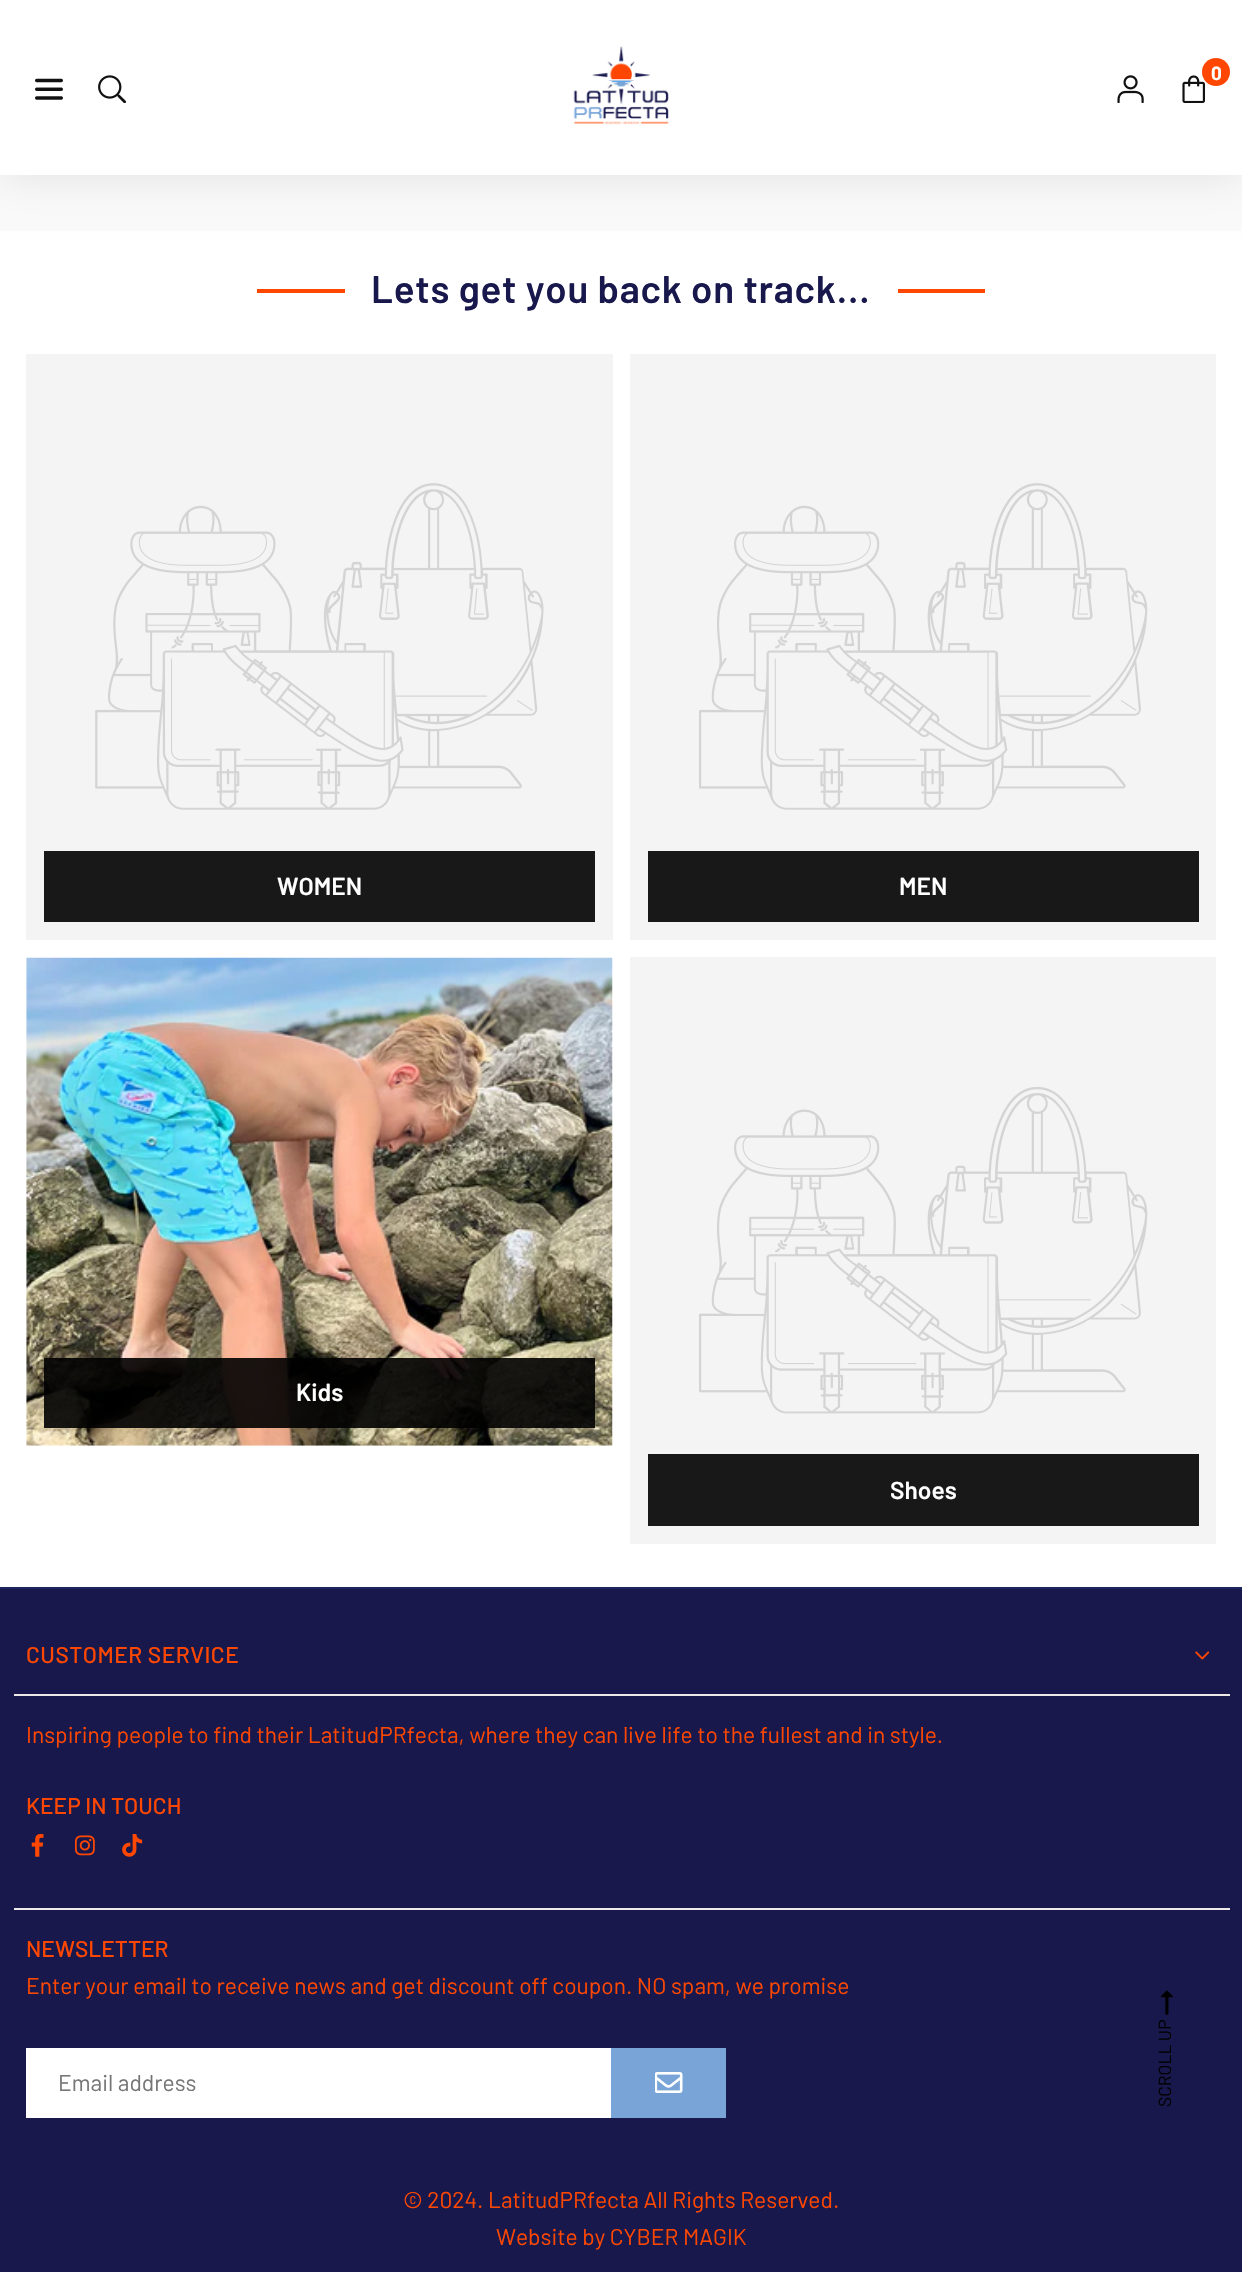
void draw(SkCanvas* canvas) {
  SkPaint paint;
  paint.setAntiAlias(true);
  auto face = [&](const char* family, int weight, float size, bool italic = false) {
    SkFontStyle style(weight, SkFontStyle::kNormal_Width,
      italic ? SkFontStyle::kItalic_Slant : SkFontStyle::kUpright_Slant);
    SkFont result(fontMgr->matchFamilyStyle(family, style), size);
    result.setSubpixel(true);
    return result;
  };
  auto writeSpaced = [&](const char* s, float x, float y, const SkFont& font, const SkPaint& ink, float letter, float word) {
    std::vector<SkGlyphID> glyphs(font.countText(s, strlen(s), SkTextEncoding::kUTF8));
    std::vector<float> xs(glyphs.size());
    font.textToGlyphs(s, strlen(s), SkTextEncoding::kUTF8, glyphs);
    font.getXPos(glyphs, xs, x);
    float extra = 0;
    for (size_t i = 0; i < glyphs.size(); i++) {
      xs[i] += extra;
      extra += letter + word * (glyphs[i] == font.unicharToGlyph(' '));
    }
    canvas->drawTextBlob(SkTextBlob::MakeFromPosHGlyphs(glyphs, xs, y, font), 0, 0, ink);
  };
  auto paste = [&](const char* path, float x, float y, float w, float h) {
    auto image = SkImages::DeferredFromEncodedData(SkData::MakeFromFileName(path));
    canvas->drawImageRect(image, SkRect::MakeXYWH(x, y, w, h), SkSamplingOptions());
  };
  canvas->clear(0xffffffff);
  paint.setColor(0xfffafafa);
  canvas->drawRect(SkRect::MakeXYWH(0, 175, 1242, 56), paint);
  paint.setColor(0x1a000000);
  paint.setMaskFilter(SkMaskFilter::MakeBlur(kNormal_SkBlurStyle, 22));
  canvas->drawRect(SkRect::MakeXYWH(0, 0, 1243, 175), paint);
  paint.setMaskFilter(nullptr);
  paint.setColor(0xffffffff);
  canvas->drawRect(SkRect::MakeXYWH(0, 0, 1242, 175), paint);
  paste("img/1.png", 573, 46, 96, 79);
  paste("img/2.png", 1182, 75, 23, 28);
  paint.setColor(0xffff4701);
  canvas->drawCircle(1216, 72, 14, paint);
  paste("img/3.png", 1117, 75, 27, 28);
  paste("img/4.png", 35, 78, 28, 22);
  paste("img/5.png", 98, 75, 28, 28);
  {
    const struct { float x, y, w, h; SkColor color; } items[] = {
      {257, 289, 88, 4, 0xffff4701},
      {898, 289, 87, 4, 0xffff4701},
      {26, 354, 587, 586, 0xfff4f4f4},
    };
    for (auto [x, y, w, h, color] : items) {
      paint.setColor(color);
      canvas->drawRect(SkRect::MakeXYWH(x, y, w, h), paint);
    }
  }
  paste("img/6.png", 95, 483, 449, 327);
  paint.setColor(0xff181818);
  canvas->drawRect(SkRect::MakeXYWH(44, 851, 551, 71), paint);
  paint.setColor(0xfff4f4f4);
  canvas->drawRect(SkRect::MakeXYWH(630, 354, 586, 586), paint);
  paste("img/7.png", 699, 483, 449, 327);
  paint.setColor(0xff181818);
  canvas->drawRect(SkRect::MakeXYWH(648, 851, 551, 71), paint);
  paste("img/8.png", 26, 957, 587, 489);
  paint.setColor(0xe6000000);
  canvas->drawRect(SkRect::MakeXYWH(44, 1358, 551, 70), paint);
  paint.setColor(0xfff4f4f4);
  canvas->drawRect(SkRect::MakeXYWH(630, 957, 586, 587), paint);
  paste("img/9.png", 699, 1087, 449, 327);
  {
    const struct { float x, y, w, h; SkColor color; } items[] = {
      {648, 1454, 551, 72, 0xff181818},
      {0, 1589, 1242, 683, 0xff18184c},
      {0, 1587, 1242, 2, 0xff1c255d},
    };
    for (auto [x, y, w, h, color] : items) {
      paint.setColor(color);
      canvas->drawRect(SkRect::MakeXYWH(x, y, w, h), paint);
    }
  }
  paste("img/10.png", 1195, 1651, 15, 9);
  paint.setColor(0xffede9e9);
  canvas->drawRect(SkRect::MakeXYWH(14, 1694, 1216, 2), paint);
  paste("img/11.png", 31, 1834, 13, 23);
  paste("img/12.png", 75, 1835, 20, 21);
  paste("img/13.png", 122, 1834, 21, 23);
  {
    const struct { float x, y, w, h; SkColor color; } items[] = {
      {14, 1908, 1216, 2, 0xffede9e9},
      {26, 2048, 585, 70, 0xffffffff},
      {611, 2048, 115, 70, 0xff79a4d8},
    };
    for (auto [x, y, w, h, color] : items) {
      paint.setColor(color);
      canvas->drawRect(SkRect::MakeXYWH(x, y, w, h), paint);
    }
  }
  paste("img/14.png", 655, 2072, 28, 21);
  paste("img/15.png", 1160, 1990, 13, 25);
  auto f0 = face("Barlow", 700, 19);
  paint.setColor(0xffffffff);
  canvas->drawString("0", 1211, 80, f0, paint);
  auto f1 = face("Barlow", 600, 38.5f);
  paint.setColor(0xff18184c);
  writeSpaced("Lets get you back on track...", 371, 303, f1, paint, 0.75f, 0);
  auto f2 = face("Barlow", 600, 24.5f);
  paint.setColor(0xffffffff);
  {
    const struct { const char* s; float x, y; } items[] = {
      {"WOMEN", 277, 895},
      {"MEN", 899, 895},
      {"Kids", 296, 1401},
      {"Shoes", 890, 1499},
    };
    for (auto [s, x, y] : items) {
      canvas->drawString(s, x, y, f2, paint);
    }
  }
  auto f3 = face("Barlow", 500, 22.75f);
  paint.setColor(0xffff4701);
  writeSpaced("CUSTOMER SERVICE", 26, 1663, f3, paint, 0.5f, 0);
  auto f4 = face("Barlow", 400, 22.75f);
  canvas->drawString("Inspiring people to find their LatitudPRfecta, where they can live life to the fullest and in style.", 26, 1743, f4, paint);
  canvas->drawString("KEEP IN TOUCH", 26, 1814, f3, paint);
  canvas->drawString("NEWSLETTER", 26, 1957, f3, paint);
  canvas->drawString("Enter your email to receive news and get discount off coupon. NO spam, we promise", 26, 1994, f4, paint);
  paint.setColor(0xff757575);
  canvas->drawString("Email address", 58, 2091, f4, paint);
  paint.setColor(0xffff4701);
  canvas->drawString("© 2024. LatitudPRfecta All Rights Reserved.", 403, 2208, f4, paint);
  canvas->drawString("Website by CYBER MAGIK", 496, 2245, f4, paint);
  auto f5 = face("Barlow", 400, 17.5f);
  paint.setColor(0xff000000);
  canvas->save();
  canvas->rotate(-90, 1171, 2107);
  canvas->drawString("SCROLL UP", 1171, 2107, f5, paint);
  canvas->restore();
}
